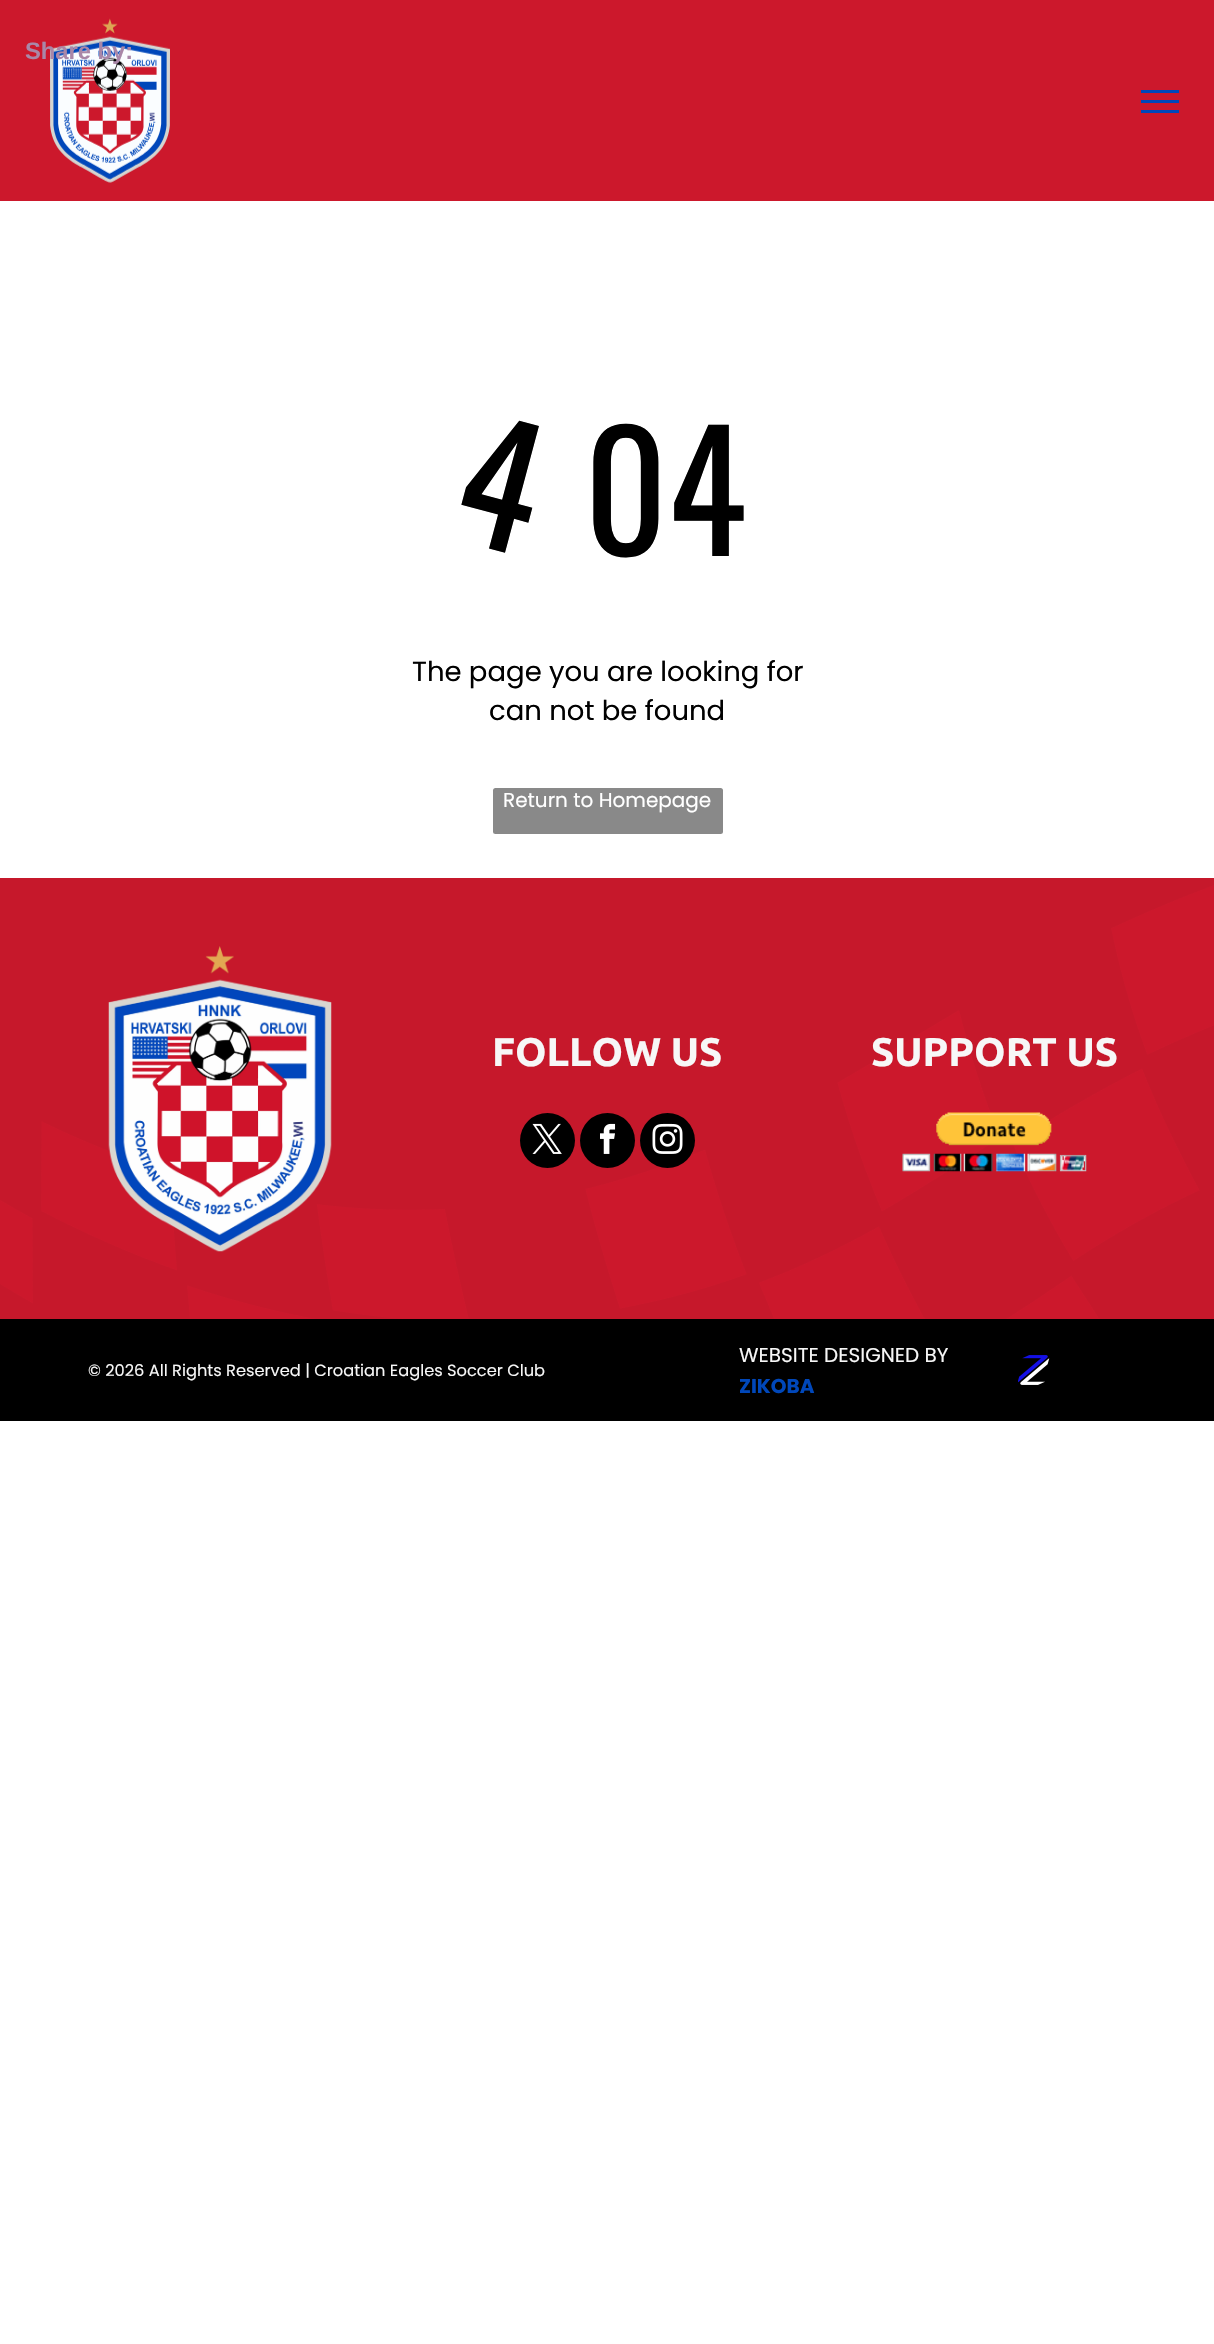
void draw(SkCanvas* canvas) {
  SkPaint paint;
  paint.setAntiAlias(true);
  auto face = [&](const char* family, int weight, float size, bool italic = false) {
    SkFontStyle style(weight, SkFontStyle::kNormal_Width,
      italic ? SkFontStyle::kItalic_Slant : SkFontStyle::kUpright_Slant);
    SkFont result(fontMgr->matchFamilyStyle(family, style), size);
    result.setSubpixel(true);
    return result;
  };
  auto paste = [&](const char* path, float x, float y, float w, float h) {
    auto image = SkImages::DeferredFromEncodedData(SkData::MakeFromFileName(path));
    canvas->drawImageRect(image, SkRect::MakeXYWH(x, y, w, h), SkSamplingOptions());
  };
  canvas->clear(0xffffffff);
  paint.setColor(0xffcc182c);
  canvas->drawRect(SkRect::MakeXYWH(0, 0, 1214, 201), paint);
  paste("img/1.png", 50, 18, 120, 165);
  {
    const struct { float x, y, w, h; SkColor color; } items[] = {
      {1141, 90, 38, 3, 0xff0047ba},
      {1141, 100, 38, 3, 0xff0047ba},
      {1141, 110, 38, 3, 0xff0047ba},
    };
    for (auto [x, y, w, h, color] : items) {
      paint.setColor(color);
      canvas->drawRect(SkRect::MakeXYWH(x, y, w, h), paint);
    }
  }
  paint.setColor(0xff898989);
  canvas->drawRoundRect(SkRect::MakeXYWH(493, 788, 230, 46), 2.5f, 2.5f, paint);
  paint.setColor(0xffc6182b);
  canvas->drawRect(SkRect::MakeXYWH(0, 878, 1214, 441), paint);
  paste("img/2.png", 0, 885, 1214, 434);
  paste("img/3.png", 108, 946, 224, 306);
  paint.setColor(0xff000000);
  canvas->drawCircle(547.5f, 1140.5f, 27.5f, paint);
  paste("img/4.png", 532, 1123, 30, 31);
  canvas->drawCircle(607.5f, 1140.5f, 27.5f, paint);
  paste("img/5.png", 600, 1123, 16, 31);
  canvas->drawCircle(667.5f, 1140.5f, 27.5f, paint);
  paste("img/6.png", 652, 1123, 31, 31);
  paste("img/7.png", 902, 1112, 185, 60);
  canvas->drawRect(SkRect::MakeXYWH(0, 1319, 1214, 102), paint);
  paste("img/8.png", 1018, 1355, 32, 30);
  auto f0 = face("Liberation Sans", 700, 23.75f);
  paint.setColor(0xffa987a8);
  canvas->drawString("Share by:", 25, 59, f0, paint);
  auto f1 = face("Oswald", 400, 162);
  paint.setColor(0xff000000);
  canvas->save();
  canvas->rotate(15, 446, 537);
  canvas->drawString("4", 446, 537, f1, paint);
  canvas->restore();
  canvas->drawString("04", 584, 556, f1, paint);
  auto f2 = face("Poppins", 400, 27.5f);
  canvas->drawString("The page you are looking for", 412, 681, f2, paint);
  canvas->drawString("can not be found", 489, 720, f2, paint);
  auto f3 = face("Poppins", 400, 20);
  paint.setColor(0xffffffff);
  canvas->drawString("Return to Homepage", 503, 807, f3, paint);
  auto f4 = face("Ubuntu", 700, 40);
  paint.setColor(0xfff7f7f7);
  canvas->drawString("FOLLOW US", 492, 1066, f4, paint);
  canvas->drawString("SUPPORT US", 871, 1066, f4, paint);
  auto f5 = face("Poppins", 400, 16.25f);
  canvas->drawString("© 2026 All Rights Reserved | Croatian Eagles Soccer Club", 88, 1376, f5, paint);
  canvas->drawString("WEBSITE DESIGNED BY", 739, 1362, f3, paint);
  auto f6 = face("Poppins", 700, 20);
  paint.setColor(0xff0047ba);
  canvas->drawString("ZIKOBA", 739, 1393, f6, paint);
}
